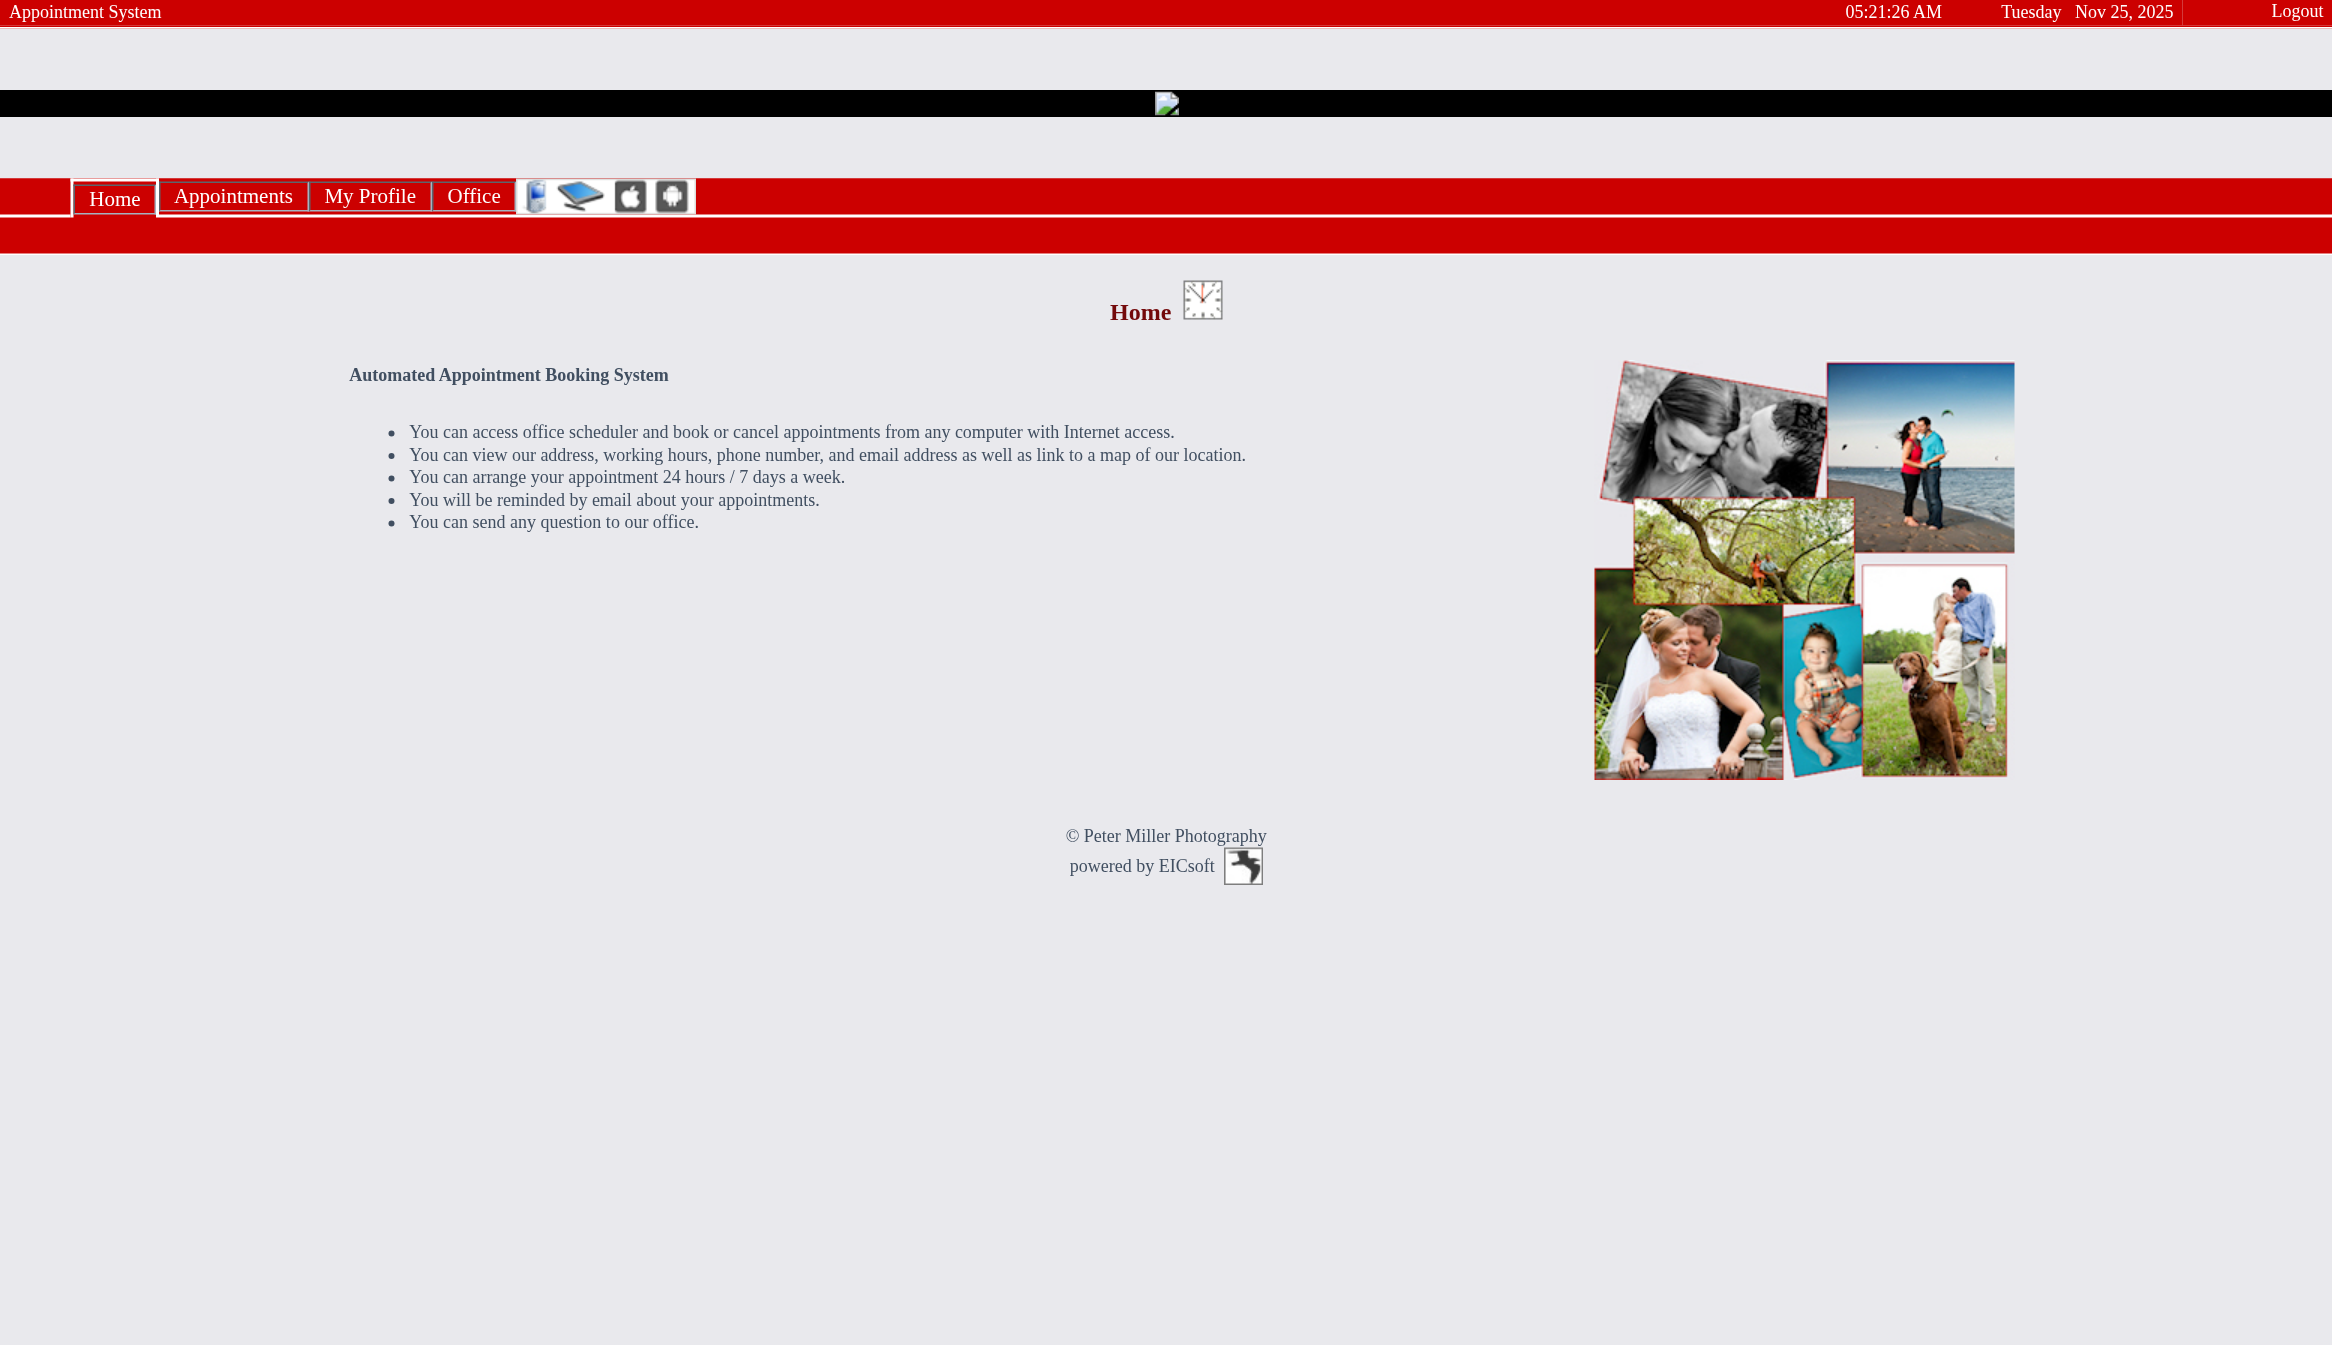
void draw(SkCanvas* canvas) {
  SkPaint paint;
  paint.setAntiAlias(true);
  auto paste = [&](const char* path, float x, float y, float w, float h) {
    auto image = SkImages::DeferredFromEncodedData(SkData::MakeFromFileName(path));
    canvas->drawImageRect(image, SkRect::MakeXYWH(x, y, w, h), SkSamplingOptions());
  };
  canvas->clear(0xffffffff);
  paste("img/1.png", 0, 0, 2332, 1345);
}
